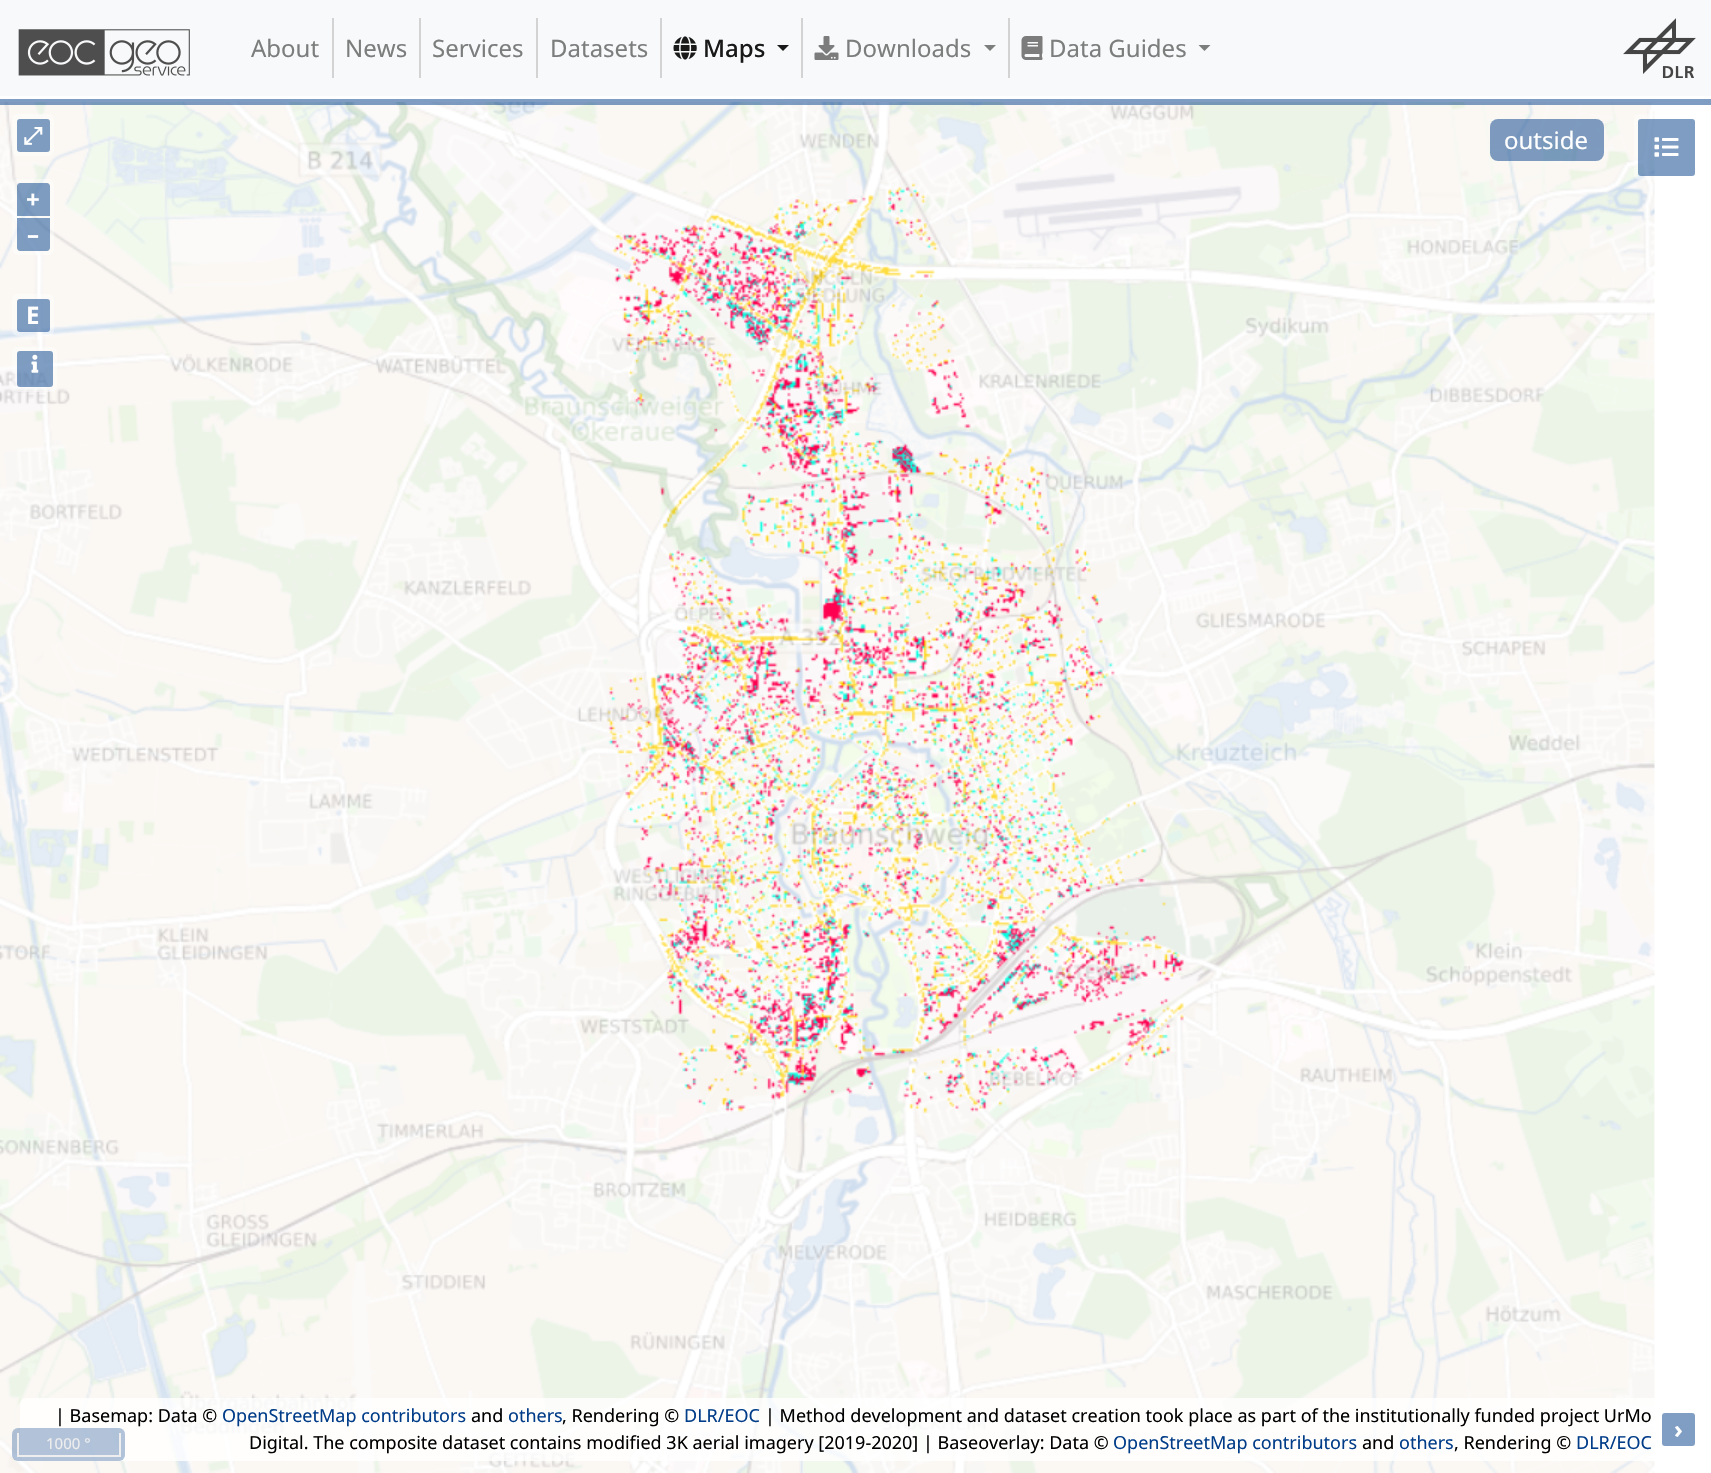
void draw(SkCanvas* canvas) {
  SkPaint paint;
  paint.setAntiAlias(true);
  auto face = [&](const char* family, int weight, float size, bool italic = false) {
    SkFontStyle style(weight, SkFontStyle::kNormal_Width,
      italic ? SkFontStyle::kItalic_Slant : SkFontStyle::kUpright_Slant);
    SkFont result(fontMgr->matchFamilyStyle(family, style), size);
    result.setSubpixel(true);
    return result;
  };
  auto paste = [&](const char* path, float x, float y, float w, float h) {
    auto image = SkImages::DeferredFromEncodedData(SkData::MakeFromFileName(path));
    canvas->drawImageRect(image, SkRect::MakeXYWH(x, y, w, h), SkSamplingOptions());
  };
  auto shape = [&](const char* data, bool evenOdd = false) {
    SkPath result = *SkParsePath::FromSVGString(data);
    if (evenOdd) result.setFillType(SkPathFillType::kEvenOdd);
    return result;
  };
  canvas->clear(0xffffffff);
  paint.setColor(0xfff8f9fa);
  canvas->drawRect(SkRect::MakeXYWH(0, 0, 1711, 96), paint);
  paste("img/1.png", 18, 29, 172, 47);
  {
    const struct { float x, y, w, h; SkColor color; } items[] = {
      {332, 18, 2, 60, 0xffd3d3d3},
      {419, 18, 2, 60, 0xffd3d3d3},
      {536, 18, 2, 60, 0xffd3d3d3},
      {660, 18, 2, 60, 0xffd3d3d3},
      {801, 18, 2, 60, 0xffd3d3d3},
    };
    for (auto [x, y, w, h, color] : items) {
      paint.setColor(color);
      canvas->drawRect(SkRect::MakeXYWH(x, y, w, h), paint);
    }
  }
  paste("img/2.png", 673, 36, 24, 24);
  paint.setColor(0xff191919);
  canvas->drawPath(shape("M777 45H789L783 51Z"), paint);
  paint.setColor(0xffd3d3d3);
  canvas->drawRect(SkRect::MakeXYWH(1008, 18, 2, 60), paint);
  paste("img/3.png", 814, 36, 25, 24);
  paint.setColor(0xff7c7d7d);
  canvas->drawPath(shape("M984 45H996L990 51Z"), paint);
  paste("img/4.png", 1021, 36, 22, 24);
  canvas->drawPath(shape("M1198.5 45H1210.5L1204.5 51Z"), paint);
  paste("img/5.png", 1623, 18, 73, 60);
  paste("img/6.png", 0, 102, 1655, 1371);
  paste("img/8.png", 607, 183, 577, 931);
  paste("img/7.png", 0, 102, 1655, 1371);
  paint.setColor(0x80003c88);
  canvas->drawRect(SkRect::MakeXYWH(0, 99, 1711, 6), paint);
  paint.setColor(0x66ffffff);
  canvas->drawRoundRect(SkRect::MakeXYWH(12, 114, 42, 42), 6, 6, paint);
  paint.setColor(0xff7e9bc0);
  canvas->drawRoundRect(SkRect::MakeXYWH(17, 119, 33, 33), 3, 3, paint);
  paint.setColor(0x80003c88);
  canvas->drawRoundRect(SkRect::MakeXYWH(1490, 119, 114, 42), 8, 8, paint);
  paint.setColor(0x66ffffff);
  canvas->drawRoundRect(SkRect::MakeXYWH(1634, 114, 66, 66), 6, 6, paint);
  paint.setColor(0x80003c88);
  canvas->drawRoundRect(SkRect::MakeXYWH(1638, 119, 57, 57), 3, 3, paint);
  paste("img/9.png", 1654, 137, 25, 20);
  paint.setColor(0x66ffffff);
  canvas->drawRoundRect(SkRect::MakeXYWH(12, 179, 42, 76), 6, 6, paint);
  paint.setColor(0x80003c88);
  canvas->drawPath(shape("M20 183H47C48.5 183 50 184.5 50 186V216H17V186C17 184.5 18.5 183 20 183Z"), paint);
  canvas->drawPath(shape("M17 218H50V248C50 249.5 48.5 251 47 251H20C18.5 251 17 249.5 17 248Z"), paint);
  paint.setColor(0x66ffffff);
  canvas->drawRoundRect(SkRect::MakeXYWH(12, 294, 42, 42), 6, 6, paint);
  paint.setColor(0x80003c88);
  canvas->drawRoundRect(SkRect::MakeXYWH(17, 299, 33, 33), 3, 3, paint);
  paint.setColor(0x66ffffff);
  canvas->drawRoundRect(SkRect::MakeXYWH(12, 347, 45, 45), 6, 6, paint);
  paint.setColor(0x80003c88);
  canvas->drawRoundRect(SkRect::MakeXYWH(17, 351, 36, 36), 3, 3, paint);
  paste("img/10.png", 31, 354, 8, 19);
  paint.setColor(0xccffffff);
  canvas->drawRoundRect(SkRect::MakeXYWH(20, 1398, 1680, 63), 6, 6, paint);
  paint.setColor(0xff809ec4);
  canvas->drawRoundRect(SkRect::MakeXYWH(1662, 1413, 33, 33), 3, 3, paint);
  paint.setColor(0x4d003c88);
  canvas->drawRoundRect(SkRect::MakeXYWH(12, 1428, 113, 33), 6, 6, paint);
  {
    const struct { float x, y, w, h; SkColor color; } items[] = {
      {119, 1433, 2, 24, 0xffeeeeee},
      {17, 1455, 103, 2, 0xffeeeeee},
      {17, 1433, 2, 24, 0xffeeeeee},
    };
    for (auto [x, y, w, h, color] : items) {
      paint.setColor(color);
      canvas->drawRect(SkRect::MakeXYWH(x, y, w, h), paint);
    }
  }
  auto f0 = face("Noto Sans", 400, 24);
  paint.setColor(0xff7c7d7d);
  {
    const struct { const char* s; float x, y; } items[] = {
      {"About", 251, 57},
      {"News", 345, 57},
      {"Services", 432, 57},
      {"Datasets", 550, 57},
    };
    for (auto [s, x, y] : items) {
      canvas->drawString(s, x, y, f0, paint);
    }
  }
  auto f1 = face("Noto Sans", 500, 24);
  paint.setColor(0xff191919);
  canvas->drawString("Maps", 703, 57, f1, paint);
  paint.setColor(0xff7c7d7d);
  canvas->drawString("Downloads", 845, 57, f0, paint);
  canvas->drawString("Data Guides", 1049, 57, f0, paint);
  auto f2 = face("FreeSerif", 700, 24);
  paint.setColor(0xffffffff);
  canvas->drawString("⤢", 23, 144, f2, paint);
  canvas->drawString("outside", 1504, 149, f0, paint);
  auto f3 = face("Noto Sans", 700, 24);
  {
    const struct { const char* s; float x, y; } items[] = {
      {"+", 26, 208},
      {"–", 27, 243},
      {"E", 26, 324},
    };
    for (auto [s, x, y] : items) {
      canvas->drawString(s, x, y, f3, paint);
    }
  }
  auto f4 = face("Noto Sans", 400, 18);
  paint.setColor(0xff000000);
  canvas->drawString("| Basemap: Data ©", 55, 1422, f4, paint);
  paint.setColor(0xff003c88);
  canvas->drawString("OpenStreetMap contributors", 222, 1422, f4, paint);
  paint.setColor(0xff000000);
  canvas->drawString("and", 471, 1422, f4, paint);
  paint.setColor(0xff003c88);
  canvas->drawString("others", 508, 1422, f4, paint);
  paint.setColor(0xff000000);
  canvas->drawString(", Rendering ©", 562, 1422, f4, paint);
  paint.setColor(0xff003c88);
  canvas->drawString("DLR/EOC", 684, 1422, f4, paint);
  paint.setColor(0xff000000);
  canvas->drawString("| Method development and dataset creation took place as part of the institutionally funded project UrMo", 765, 1422, f4, paint);
  canvas->drawString("Digital. The composite dataset contains modified 3K aerial imagery [2019-2020] | Baseoverlay: Data ©", 249, 1449, f4, paint);
  paint.setColor(0xff003c88);
  canvas->drawString("OpenStreetMap contributors", 1113, 1449, f4, paint);
  paint.setColor(0xff000000);
  canvas->drawString("and", 1362, 1449, f4, paint);
  paint.setColor(0xff003c88);
  canvas->drawString("others", 1399, 1449, f4, paint);
  paint.setColor(0xff000000);
  canvas->drawString(", Rendering ©", 1454, 1449, f4, paint);
  paint.setColor(0xff003c88);
  canvas->drawString("DLR/EOC", 1576, 1449, f4, paint);
  paint.setColor(0xffffffff);
  canvas->drawString("›", 1674, 1438, f3, paint);
  auto f5 = face("Noto Sans", 400, 15);
  paint.setColor(0xffeeeeee);
  canvas->drawString("1000 °", 46, 1449, f5, paint);
}
